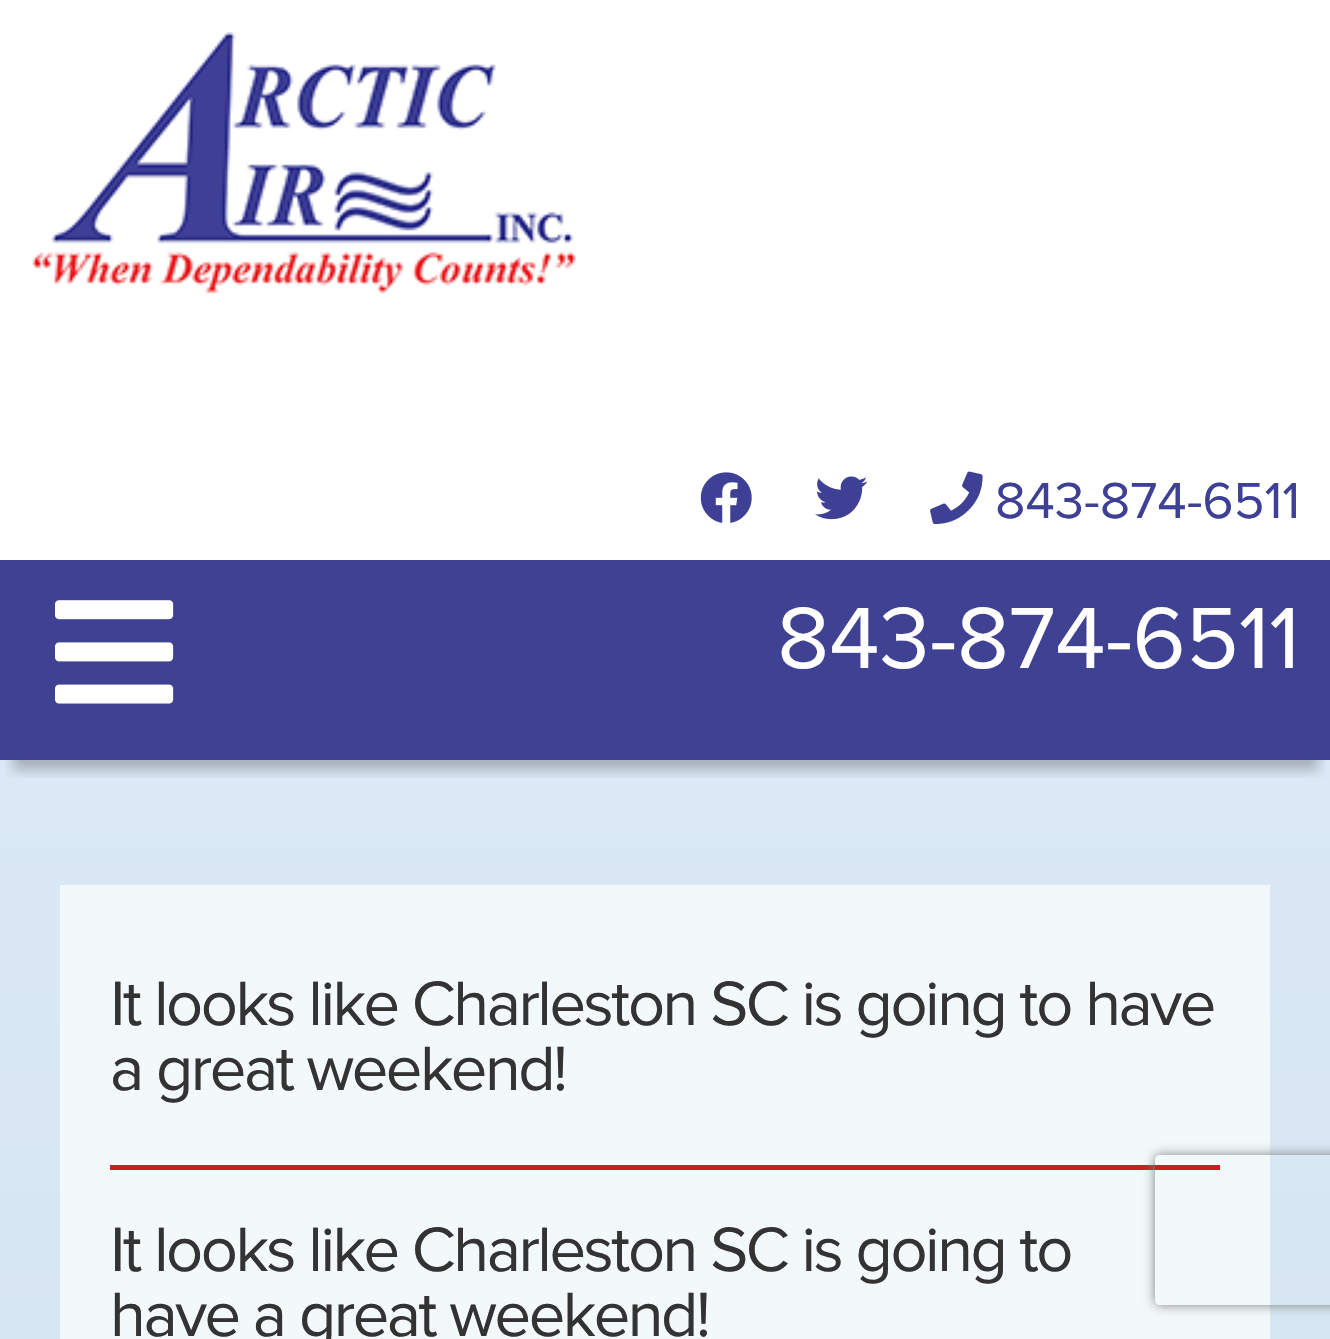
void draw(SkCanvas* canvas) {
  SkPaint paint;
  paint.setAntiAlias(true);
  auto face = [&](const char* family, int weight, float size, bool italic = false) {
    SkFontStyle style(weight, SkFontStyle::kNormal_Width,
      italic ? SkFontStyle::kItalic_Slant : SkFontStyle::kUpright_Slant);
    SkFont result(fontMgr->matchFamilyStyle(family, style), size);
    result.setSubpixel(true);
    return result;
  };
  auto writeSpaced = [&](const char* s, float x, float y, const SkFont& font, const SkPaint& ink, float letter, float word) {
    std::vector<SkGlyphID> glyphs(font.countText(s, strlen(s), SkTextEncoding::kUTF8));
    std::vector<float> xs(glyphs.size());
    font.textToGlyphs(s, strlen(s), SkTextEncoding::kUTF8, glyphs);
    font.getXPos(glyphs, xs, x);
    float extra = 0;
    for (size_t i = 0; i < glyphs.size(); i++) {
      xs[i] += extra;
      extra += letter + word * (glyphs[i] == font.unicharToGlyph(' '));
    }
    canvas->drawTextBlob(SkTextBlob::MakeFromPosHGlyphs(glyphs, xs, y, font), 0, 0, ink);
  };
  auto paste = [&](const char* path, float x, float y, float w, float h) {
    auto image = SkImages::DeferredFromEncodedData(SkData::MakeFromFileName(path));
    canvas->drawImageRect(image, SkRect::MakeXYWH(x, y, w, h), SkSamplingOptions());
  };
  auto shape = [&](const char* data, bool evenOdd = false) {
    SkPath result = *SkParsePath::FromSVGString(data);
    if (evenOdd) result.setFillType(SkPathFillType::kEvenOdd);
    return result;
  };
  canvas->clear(0xffffffff);
  {
    const SkColor colors[] = {0xffdae9f5, 0xff98aec3};
    const float stops[] = {0, 1};
    const SkPoint ends[] = {{665, 760}, {665, 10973}};
    paint.setShader(SkGradientShader::MakeLinear(ends, colors, stops, 2, SkTileMode::kClamp));
    paint.setAlpha(255);
  }
  canvas->drawRect(SkRect::MakeXYWH(0, 760, 1330, 579), paint);
  canvas->save();
  canvas->clipRect(SkRect::MakeXYWH(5, 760, 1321, 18));
  paint.setShader(nullptr);
  paint.setColor(0x40000000);
  paint.setMaskFilter(SkMaskFilter::MakeBlur(kNormal_SkBlurStyle, 6));
  canvas->drawRect(SkRect::MakeXYWH(13, 35, 1305, 735), paint);
  paint.setMaskFilter(nullptr);
  canvas->restore();
  paste("img/1.png", 31, 32, 545, 262);
  paste("img/2.png", 700, 472, 52, 51);
  paste("img/3.png", 815, 476, 53, 44);
  paste("img/4.png", 930, 471, 53, 54);
  paint.setColor(0xff3f4292);
  canvas->drawRect(SkRect::MakeXYWH(0, 560, 1330, 200), paint);
  paste("img/5.png", 55, 600, 119, 104);
  paint.setColor(0xfff3f8fb);
  canvas->drawRect(SkRect::MakeXYWH(60, 885, 1210, 454), paint);
  paint.setColor(0xffd31a24);
  canvas->drawRect(SkRect::MakeXYWH(110, 1165, 1110, 5), paint);
  canvas->save();
  canvas->clipPath(shape("M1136 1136H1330V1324H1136ZM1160 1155H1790C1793 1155 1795 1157 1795 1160V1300C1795 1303 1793 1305 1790 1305H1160C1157 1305 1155 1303 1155 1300V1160C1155 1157 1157 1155 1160 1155Z", true), true);
  paint.setColor(0xff808080);
  paint.setMaskFilter(SkMaskFilter::MakeBlur(kNormal_SkBlurStyle, 6));
  canvas->drawRoundRect(SkRect::MakeXYWH(1155, 1155, 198, 150), 5, 5, paint);
  paint.setMaskFilter(nullptr);
  canvas->restore();
  auto f0 = face("Proxima Nova", 400, 52.5f);
  paint.setColor(0xff3e4095);
  canvas->drawString("843-874-6511", 995, 518, f0, paint);
  auto f1 = face("Proxima Nova", 400, 90);
  paint.setColor(0xffffffff);
  canvas->drawString("843-874-6511", 777, 668, f1, paint);
  auto f2 = face("Proxima Nova", 400, 65);
  paint.setColor(0xff333333);
  {
    const struct { const char* s; float x, y; } items[] = {
      {"It looks like Charleston SC is going to have", 110, 1025},
      {"a great weekend!", 110, 1090},
      {"It looks like Charleston SC is going to", 110, 1271},
      {"have a great weekend!", 110, 1336},
    };
    for (auto [s, x, y] : items) {
      writeSpaced(s, x, y, f2, paint, -2.5f, 0);
    }
  }
}
